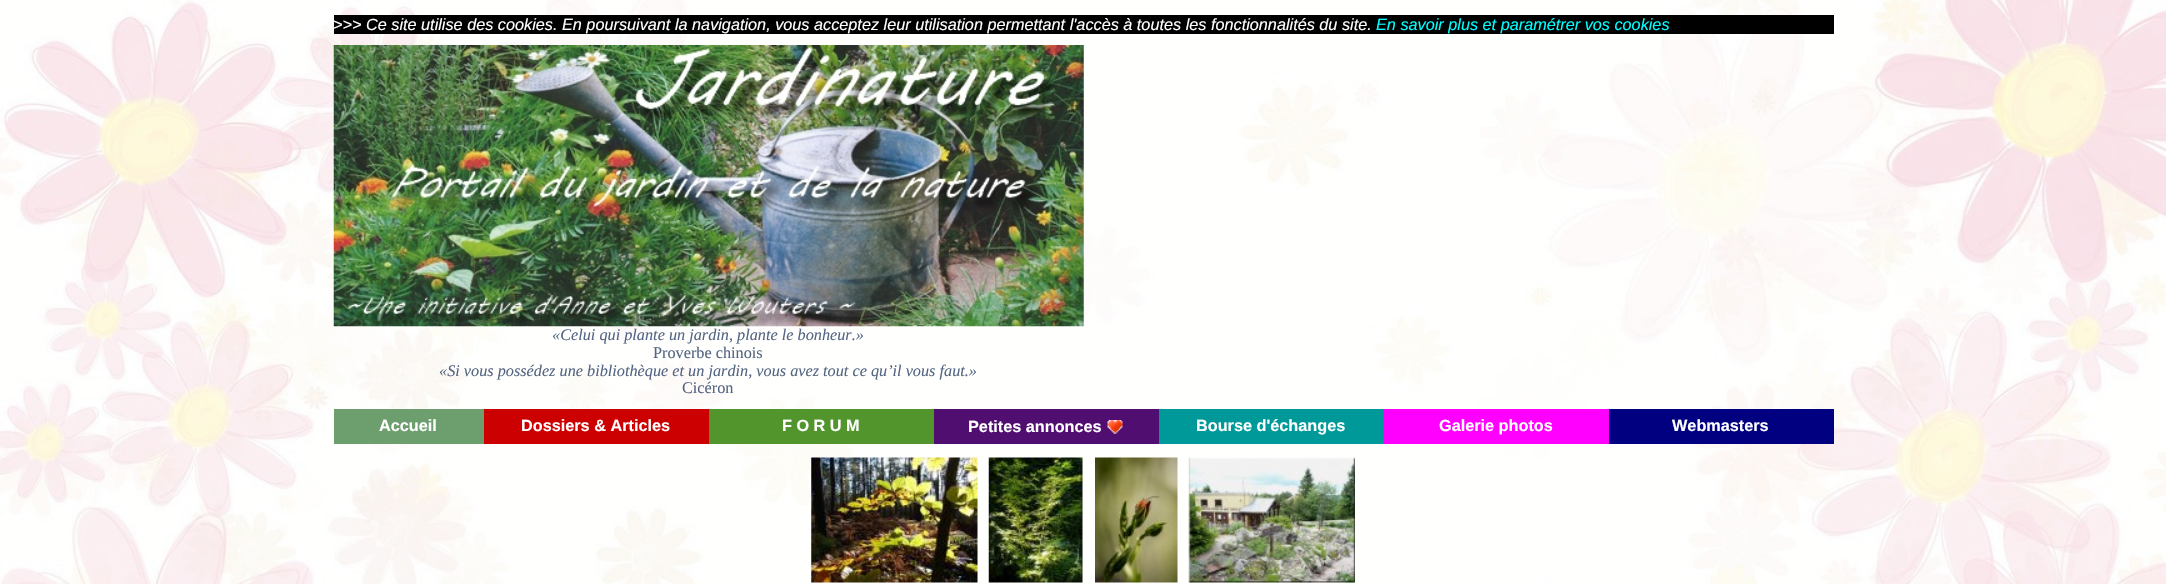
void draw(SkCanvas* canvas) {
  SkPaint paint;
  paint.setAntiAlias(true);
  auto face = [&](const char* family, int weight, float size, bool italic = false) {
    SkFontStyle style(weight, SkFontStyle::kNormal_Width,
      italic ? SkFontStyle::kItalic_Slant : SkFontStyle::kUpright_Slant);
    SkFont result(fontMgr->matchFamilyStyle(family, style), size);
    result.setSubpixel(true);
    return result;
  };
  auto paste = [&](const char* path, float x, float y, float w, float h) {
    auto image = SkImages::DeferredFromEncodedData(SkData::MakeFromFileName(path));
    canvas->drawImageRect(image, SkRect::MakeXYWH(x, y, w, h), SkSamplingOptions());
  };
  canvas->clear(0xffffffff);
  paste("img/1.png", 0, 0, 2166, 584);
  paint.setColor(0xff000000);
  canvas->drawRect(SkRect::MakeXYWH(334, 15, 1500, 19), paint);
  paste("img/2.png", 333, 45, 751, 282);
  {
    const struct { float x, y, w, h; SkColor color; } items[] = {
      {334, 409, 150, 35, 0xff6c9f6d},
      {484, 409, 225, 35, 0xffcc0000},
      {709, 409, 225, 35, 0xff52952d},
      {934, 409, 225, 35, 0xff500e70},
    };
    for (auto [x, y, w, h, color] : items) {
      paint.setColor(color);
      canvas->drawRect(SkRect::MakeXYWH(x, y, w, h), paint);
    }
  }
  paste("img/3.png", 1107, 420, 16, 14);
  {
    const struct { float x, y, w, h; SkColor color; } items[] = {
      {1159, 409, 225, 35, 0xff009999},
      {1384, 409, 225, 35, 0xffff00ff},
      {1609, 409, 225, 35, 0xff000080},
    };
    for (auto [x, y, w, h, color] : items) {
      paint.setColor(color);
      canvas->drawRect(SkRect::MakeXYWH(x, y, w, h), paint);
    }
  }
  paste("img/4.png", 811, 457, 167, 126);
  paste("img/5.png", 988, 457, 95, 126);
  paste("img/6.png", 1095, 457, 83, 126);
  paste("img/7.png", 1188, 457, 167, 126);
  auto f0 = face("Liberation Sans", 400, 16.25f, true);
  paint.setColor(0xffffffff);
  canvas->drawString(">>> Ce site utilise des cookies. En poursuivant la navigation, vous acceptez leur utilisation permettant l'accès à toutes les fonctionnalités du site.", 333, 30, f0, paint);
  paint.setColor(0xff00ffff);
  canvas->drawString("En savoir plus et paramétrer vos cookies", 1376, 30, f0, paint);
  auto f1 = face("Liberation Serif", 400, 16.25f, true);
  paint.setColor(0xff536482);
  canvas->drawString("«Celui qui plante un jardin, plante le bonheur.»", 552, 340, f1, paint);
  auto f2 = face("Liberation Serif", 400, 16.25f);
  canvas->drawString("Proverbe chinois", 653, 358, f2, paint);
  canvas->drawString("«Si vous possédez une bibliothèque et un jardin, vous avez tout ce qu’il vous faut.»", 439, 376, f1, paint);
  canvas->drawString("Cicéron", 682, 393, f2, paint);
  auto f3 = face("Liberation Sans", 700, 16.25f);
  paint.setColor(0xffffffff);
  {
    const struct { const char* s; float x, y; } items[] = {
      {"Accueil", 379, 431},
      {"Dossiers & Articles", 521, 431},
      {"F O R U M", 782, 431},
      {"Petites annonces", 968, 432},
      {"Bourse d'échanges", 1196, 431},
      {"Galerie photos", 1439, 431},
      {"Webmasters", 1672, 431},
    };
    for (auto [s, x, y] : items) {
      canvas->drawString(s, x, y, f3, paint);
    }
  }
}
